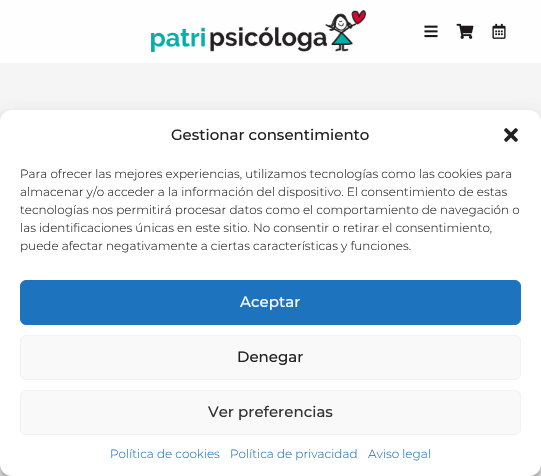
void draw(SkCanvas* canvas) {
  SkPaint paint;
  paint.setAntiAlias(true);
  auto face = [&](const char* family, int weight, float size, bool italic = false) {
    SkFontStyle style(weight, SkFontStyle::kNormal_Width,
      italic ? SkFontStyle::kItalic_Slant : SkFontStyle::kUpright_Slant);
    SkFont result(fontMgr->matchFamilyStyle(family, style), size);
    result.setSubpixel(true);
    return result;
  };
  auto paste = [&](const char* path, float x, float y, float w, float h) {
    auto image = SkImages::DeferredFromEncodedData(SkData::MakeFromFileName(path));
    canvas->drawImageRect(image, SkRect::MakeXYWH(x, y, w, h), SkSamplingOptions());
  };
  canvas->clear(0xfff5f5f5);
  paint.setColor(0xfffefefe);
  canvas->drawRect(SkRect::MakeXYWH(0, 0, 541, 63), paint);
  paste("img/1.png", 151, 10, 215, 42);
  paste("img/2.png", 424, 25, 14, 13);
  paste("img/3.png", 456, 23, 18, 16);
  paste("img/4.png", 492, 23, 14, 16);
  paint.setColor(0x3b000000);
  paint.setMaskFilter(SkMaskFilter::MakeBlur(kNormal_SkBlurStyle, 3));
  canvas->drawRoundRect(SkRect::MakeXYWH(0, 116, 541, 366), 12, 12, paint);
  paint.setMaskFilter(nullptr);
  paint.setColor(0x30000000);
  paint.setMaskFilter(SkMaskFilter::MakeBlur(kNormal_SkBlurStyle, 10));
  canvas->drawRoundRect(SkRect::MakeXYWH(0, 120, 541, 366), 12, 12, paint);
  paint.setMaskFilter(nullptr);
  paint.setColor(0xffffffff);
  canvas->drawRoundRect(SkRect::MakeXYWH(0, 110, 541, 366), 12, 12, paint);
  paste("img/5.png", 504, 128, 14, 14);
  paint.setColor(0xff1e73be);
  canvas->drawRoundRect(SkRect::MakeXYWH(20.5f, 280.5f, 500, 44), 5.5f, 5.5f, paint);
  paint.setStroke(true);
  paint.setStrokeWidth(1);
  canvas->drawRoundRect(SkRect::MakeXYWH(20.5f, 280.5f, 500, 44), 5.5f, 5.5f, paint);
  paint.setStroke(false);
  paint.setColor(0xfff9f9f9);
  canvas->drawRoundRect(SkRect::MakeXYWH(20.5f, 335.5f, 500, 44), 5.5f, 5.5f, paint);
  paint.setStroke(true);
  paint.setColor(0xfff2f2f2);
  canvas->drawRoundRect(SkRect::MakeXYWH(20.5f, 335.5f, 500, 44), 5.5f, 5.5f, paint);
  paint.setStroke(false);
  paint.setColor(0xfff9f9f9);
  canvas->drawRoundRect(SkRect::MakeXYWH(20.5f, 390.5f, 500, 44), 5.5f, 5.5f, paint);
  paint.setStroke(true);
  paint.setColor(0xfff2f2f2);
  canvas->drawRoundRect(SkRect::MakeXYWH(20.5f, 390.5f, 500, 44), 5.5f, 5.5f, paint);
  auto f0 = face("Montserrat", 500, 15);
  paint.setStroke(false);
  paint.setColor(0xff222222);
  canvas->drawString("Gestionar consentimiento", 171, 140, f0, paint);
  auto f1 = face("Montserrat", 300, 12);
  {
    const struct { const char* s; float x, y; } items[] = {
      {"Para ofrecer las mejores experiencias, utilizamos tecnologías como las cookies para", 20, 178},
      {"almacenar y/o acceder a la información del dispositivo. El consentimiento de estas", 20, 196},
      {"tecnologías nos permitirá procesar datos como el comportamiento de navegación o", 20, 214},
      {"las identificaciones únicas en este sitio. No consentir o retirar el consentimiento,", 20, 232},
      {"puede afectar negativamente a ciertas características y funciones.", 20, 250},
    };
    for (auto [s, x, y] : items) {
      canvas->drawString(s, x, y, f1, paint);
    }
  }
  paint.setColor(0xffffffff);
  canvas->drawString("Aceptar", 240, 307, f0, paint);
  paint.setColor(0xff222222);
  canvas->drawString("Denegar", 237, 362, f0, paint);
  paint.setColor(0xff333333);
  canvas->drawString("Ver preferencias", 208, 417, f0, paint);
  paint.setColor(0xff1e73be);
  {
    const struct { const char* s; float x, y; } items[] = {
      {"Política de cookies", 110, 458},
      {"Política de privacidad", 230, 458},
      {"Aviso legal", 368, 458},
    };
    for (auto [s, x, y] : items) {
      canvas->drawString(s, x, y, f1, paint);
    }
  }
}
